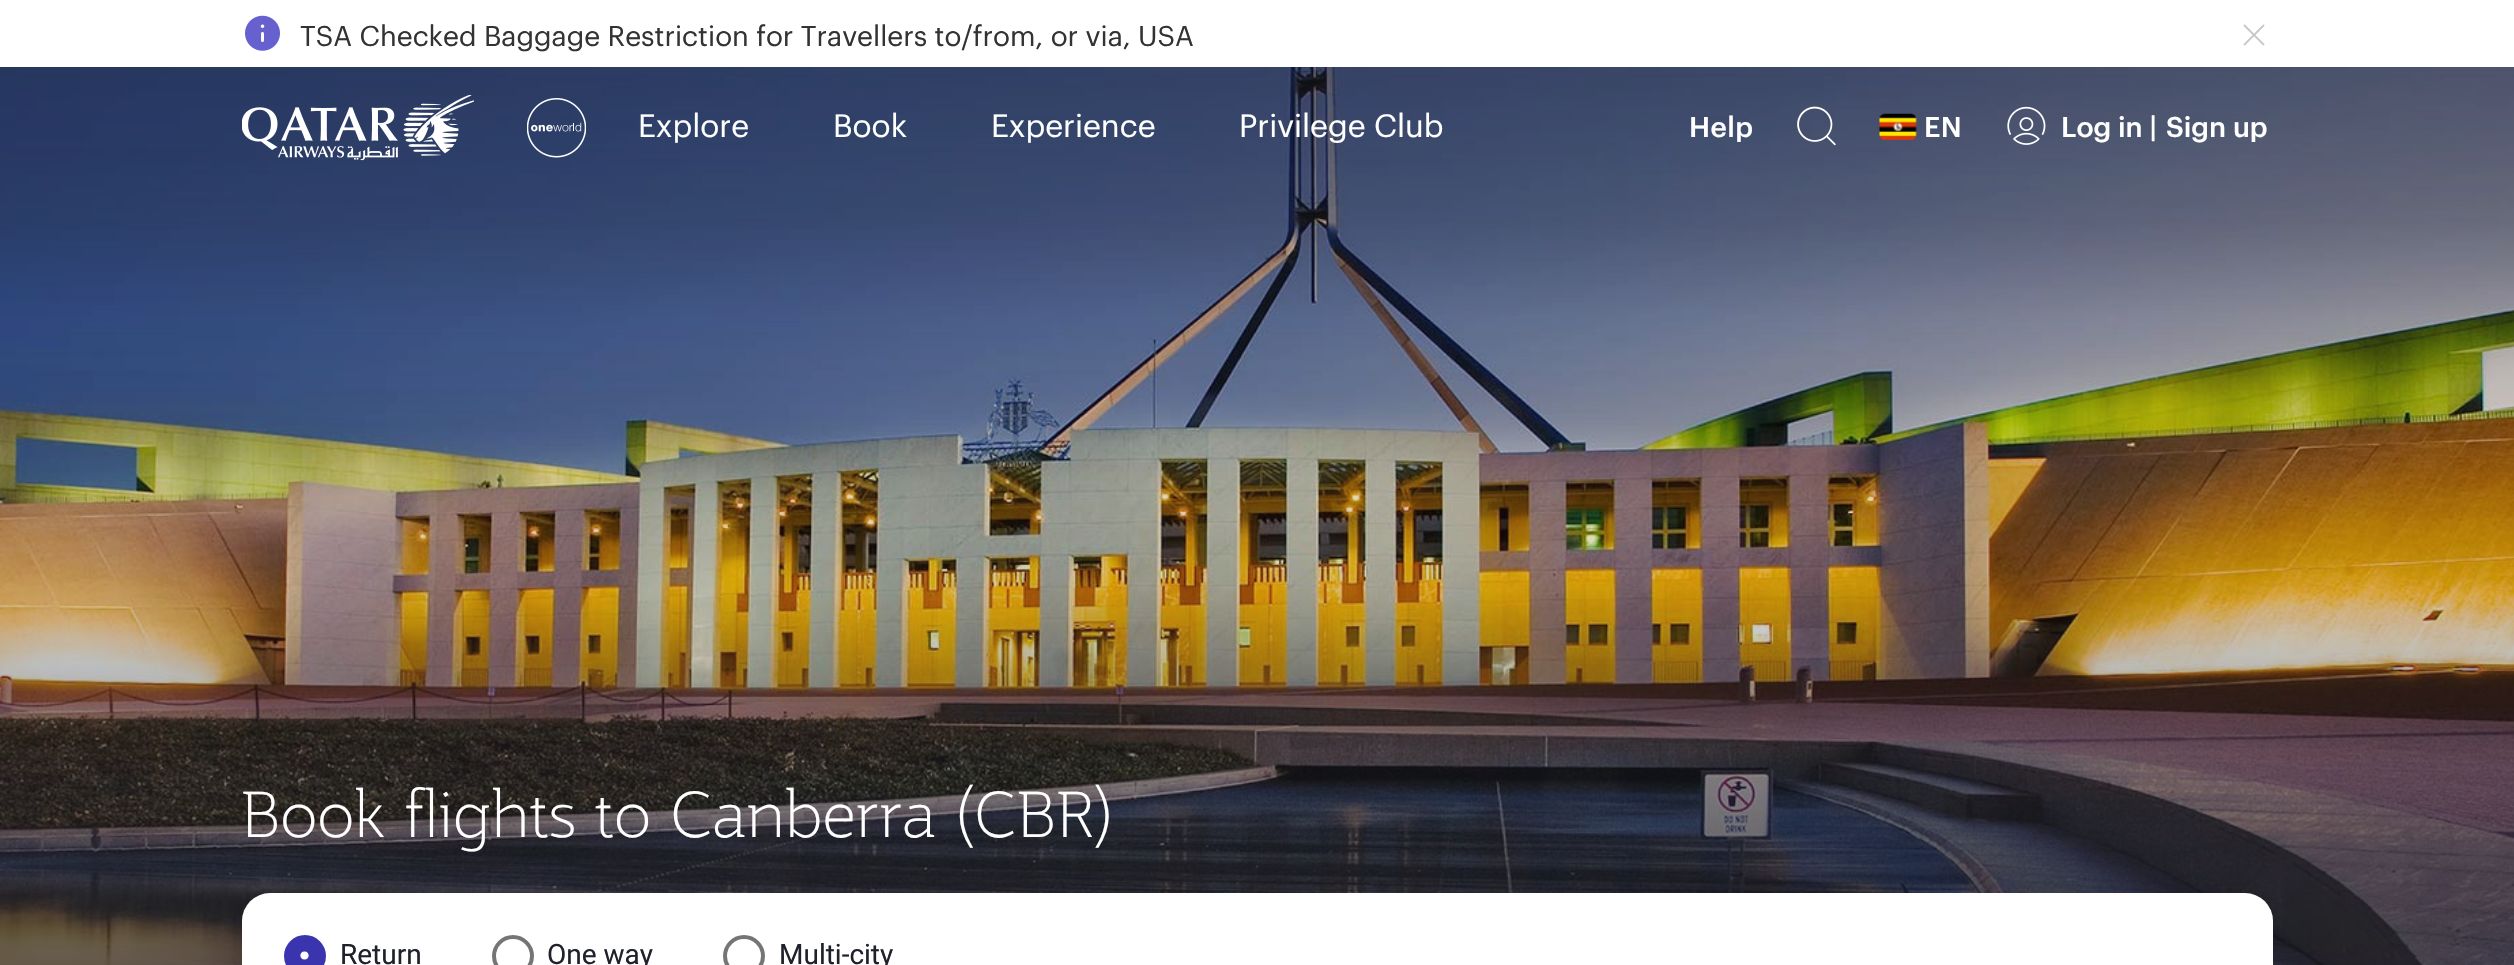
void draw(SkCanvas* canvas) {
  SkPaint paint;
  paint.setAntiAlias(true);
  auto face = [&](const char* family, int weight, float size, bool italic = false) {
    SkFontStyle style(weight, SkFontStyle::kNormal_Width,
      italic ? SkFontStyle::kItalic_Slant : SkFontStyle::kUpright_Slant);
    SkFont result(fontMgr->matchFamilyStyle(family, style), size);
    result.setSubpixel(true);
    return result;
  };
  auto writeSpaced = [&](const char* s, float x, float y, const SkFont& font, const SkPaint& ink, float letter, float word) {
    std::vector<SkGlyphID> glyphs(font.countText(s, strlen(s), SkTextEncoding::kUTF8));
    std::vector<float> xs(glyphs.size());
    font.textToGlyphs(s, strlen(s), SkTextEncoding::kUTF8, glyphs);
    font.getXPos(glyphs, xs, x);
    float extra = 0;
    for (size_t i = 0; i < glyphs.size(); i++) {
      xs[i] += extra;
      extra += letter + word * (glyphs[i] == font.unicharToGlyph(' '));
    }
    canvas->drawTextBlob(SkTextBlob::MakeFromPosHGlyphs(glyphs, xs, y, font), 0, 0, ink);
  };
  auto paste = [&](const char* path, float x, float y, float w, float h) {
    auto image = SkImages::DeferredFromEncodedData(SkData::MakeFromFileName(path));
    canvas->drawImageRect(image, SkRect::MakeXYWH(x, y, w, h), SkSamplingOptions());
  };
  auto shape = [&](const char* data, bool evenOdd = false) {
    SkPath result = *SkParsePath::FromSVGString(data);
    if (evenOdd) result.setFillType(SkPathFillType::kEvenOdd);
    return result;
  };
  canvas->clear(0xffffffff);
  paste("img/1.png", 245, 15, 35, 36);
  paste("img/2.png", 2243, 24, 22, 22);
  paste("img/8.png", 0, 67, 2514, 898);
  paste("img/3.png", 242, 95, 232, 66);
  paste("img/4.png", 527, 98, 59, 60);
  paste("img/5.png", 1797, 106, 39, 40);
  paste("img/6.png", 1879, 113, 38, 28);
  paste("img/7.png", 2007, 106, 39, 39);
  paint.setColor(0x1a000000);
  paint.setMaskFilter(SkMaskFilter::MakeBlur(kNormal_SkBlurStyle, 10.5f));
  canvas->drawRoundRect(SkRect::MakeXYWH(242, 900, 2031, 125), 28, 28, paint);
  paint.setMaskFilter(nullptr);
  paint.setColor(0xffffffff);
  canvas->drawRoundRect(SkRect::MakeXYWH(242, 893, 2031, 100), 28, 28, paint);
  paint.setColor(0xff3a35af);
  canvas->drawCircle(305, 956, 19, paint);
  paint.setStroke(true);
  paint.setStrokeWidth(4);
  canvas->drawCircle(305, 956, 19, paint);
  paint.setStroke(false);
  paint.setColor(0xffffffff);
  canvas->drawPath(shape("M304.5 959.5C299 959.5 299 951.5 304.5 951.5C310 951.5 310 959.5 304.5 959.5Z"), paint);
  paint.setStroke(true);
  paint.setColor(0xff757575);
  canvas->drawCircle(513, 956, 19, paint);
  canvas->drawCircle(744, 956, 19, paint);
  auto f0 = face("Graphik", 400, 28);
  paint.setStroke(false);
  paint.setColor(0xff333333);
  canvas->drawString("TSA Checked Baggage Restriction for Travellers to/from, or via, USA", 300, 46, f0, paint);
  auto f1 = face("Graphik", 400, 31.5f);
  paint.setColor(0xffffffff);
  {
    const struct { const char* s; float x, y; } items[] = {
      {"Explore", 638, 137},
      {"Book", 833, 137},
      {"Experience", 991, 137},
      {"Privilege Club", 1239, 137},
    };
    for (auto [s, x, y] : items) {
      canvas->drawString(s, x, y, f1, paint);
    }
  }
  auto f2 = face("Graphik", 500, 28);
  writeSpaced("Help", 1689, 137, f2, paint, 0.5f, 0);
  writeSpaced("EN", 1924, 137, f2, paint, 0.5f, 0);
  canvas->drawString("Log in |", 2061, 137, f2, paint);
  canvas->drawString("Sign up", 2166, 137, f2, paint);
  auto f3 = face("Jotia", 100, 63);
  canvas->drawString("Book flights to Canberra (CBR)", 241, 837, f3, paint);
  auto f4 = face("Roboto", 400, 28);
  paint.setColor(0xff1f212b);
  {
    const struct { const char* s; float x, y; } items[] = {
      {"Return", 340, 964},
      {"One way", 547, 964},
      {"Multi-city", 779, 964},
    };
    for (auto [s, x, y] : items) {
      canvas->drawString(s, x, y, f4, paint);
    }
  }
}
